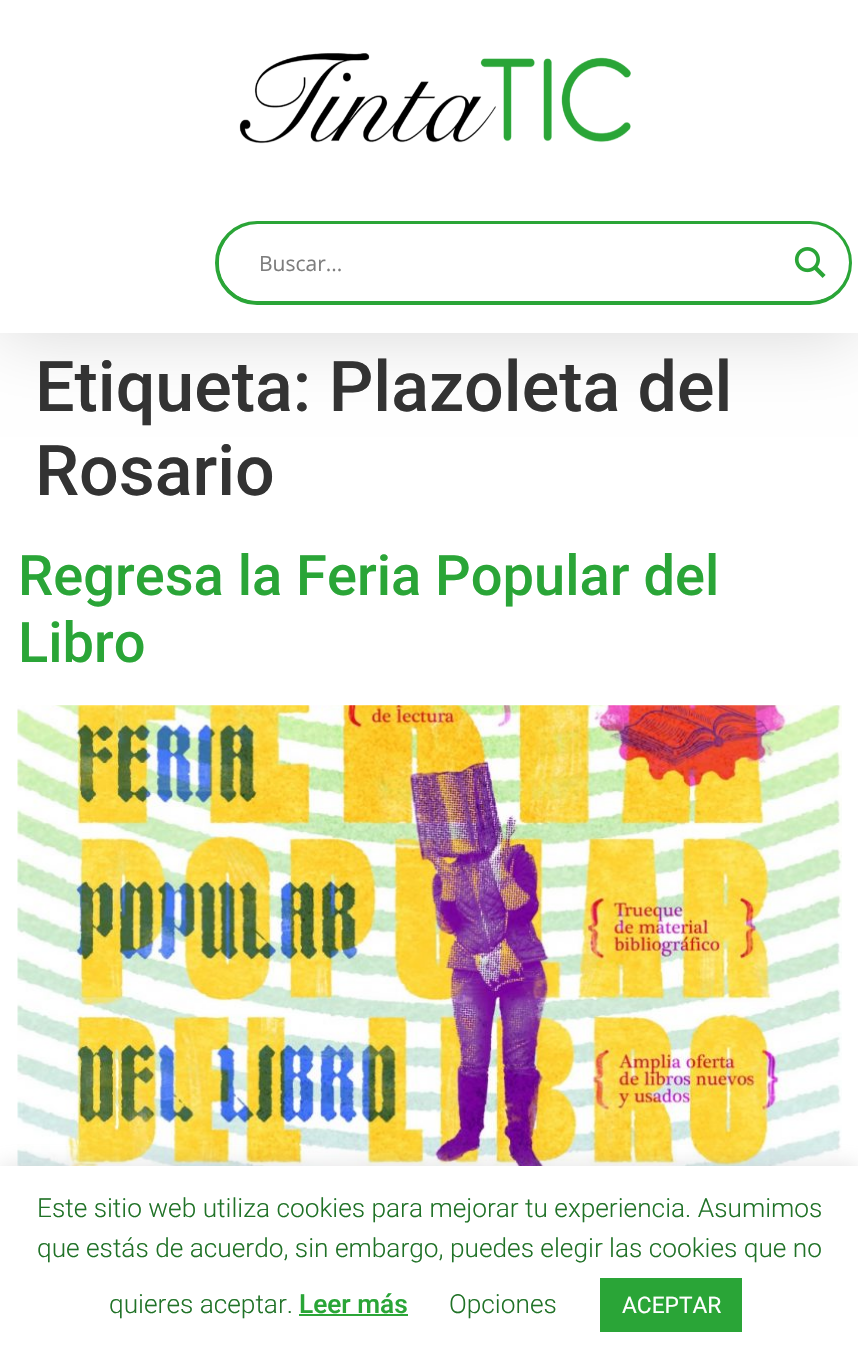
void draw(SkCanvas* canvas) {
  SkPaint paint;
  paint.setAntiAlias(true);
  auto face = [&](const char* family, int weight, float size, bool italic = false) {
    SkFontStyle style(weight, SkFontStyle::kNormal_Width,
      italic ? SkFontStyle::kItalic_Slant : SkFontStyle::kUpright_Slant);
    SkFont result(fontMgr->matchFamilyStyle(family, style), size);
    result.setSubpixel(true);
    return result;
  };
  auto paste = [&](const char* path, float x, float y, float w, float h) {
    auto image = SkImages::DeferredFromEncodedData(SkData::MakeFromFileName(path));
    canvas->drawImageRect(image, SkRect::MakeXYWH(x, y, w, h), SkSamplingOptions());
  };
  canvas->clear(0xffffffff);
  paint.setColor(0x29000000);
  paint.setMaskFilter(SkMaskFilter::MakeBlur(kNormal_SkBlurStyle, 35));
  canvas->drawRect(SkRect::MakeXYWH(0, 0, 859, 333), paint);
  paint.setMaskFilter(nullptr);
  paint.setColor(0xffffffff);
  canvas->drawRect(SkRect::MakeXYWH(0, 0, 858, 333), paint);
  paste("img/1.png", 239, 53, 392, 91);
  paint.setStroke(true);
  paint.setStrokeWidth(4);
  paint.setColor(0xff2aa537);
  canvas->drawRoundRect(SkRect::MakeXYWH(217, 223, 633, 80), 40, 40, paint);
  paint.setStroke(false);
  paint.setColor(0xffffffff);
  canvas->drawRoundRect(SkRect::MakeXYWH(219, 224, 630, 77), 38.5f, 38.5f, paint);
  paste("img/2.png", 794, 247, 32, 31);
  paste("img/3.png", 17, 705, 825, 461);
  paint.setColor(0x4dacabab);
  paint.setMaskFilter(SkMaskFilter::MakeBlur(kNormal_SkBlurStyle, 9));
  canvas->drawRect(SkRect::MakeXYWH(0, 1164, 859, 196), paint);
  paint.setMaskFilter(nullptr);
  {
    const struct { float x, y, w, h; SkColor color; } items[] = {
      {0, 1166, 858, 195, 0xffffffff},
      {299, 1314, 109, 2, 0xff2aa537},
      {600, 1278, 142, 54, 0xff2aa537},
    };
    for (auto [x, y, w, h, color] : items) {
      paint.setColor(color);
      canvas->drawRect(SkRect::MakeXYWH(x, y, w, h), paint);
    }
  }
  auto f0 = face("Open Sans", 400, 21);
  paint.setColor(0xff7d7d7d);
  canvas->drawString("Buscar...", 259, 271, f0, paint);
  auto f1 = face("Roboto", 500, 70);
  paint.setColor(0xff333333);
  canvas->drawString("Etiqueta: Plazoleta del", 35, 411, f1, paint);
  canvas->drawString("Rosario", 35, 495, f1, paint);
  auto f2 = face("Roboto", 500, 56);
  paint.setColor(0xff2aa537);
  canvas->drawString("Regresa la Feria Popular del", 18, 595, f2, paint);
  canvas->drawString("Libro", 18, 662, f2, paint);
  auto f3 = face("Roboto", 300, 26.25f);
  paint.setColor(0xff207227);
  {
    const struct { const char* s; float x, y; } items[] = {
      {"Este sitio web utiliza cookies para mejorar tu experiencia. Asumimos", 37, 1217},
      {"que estás de acuerdo, sin embargo, puedes elegir las cookies que no", 37, 1257},
      {"quieres aceptar.", 109, 1313},
    };
    for (auto [s, x, y] : items) {
      canvas->drawString(s, x, y, f3, paint);
    }
  }
  auto f4 = face("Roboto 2", 500, 26.25f);
  paint.setColor(0xff2aa537);
  canvas->drawString("Leer más", 299, 1313, f4, paint);
  paint.setColor(0xff207227);
  canvas->drawString("Opciones", 449, 1313, f3, paint);
  auto f5 = face("Roboto", 400, 22.75f);
  paint.setColor(0xffffffff);
  canvas->drawString("ACEPTAR", 622, 1313, f5, paint);
}
